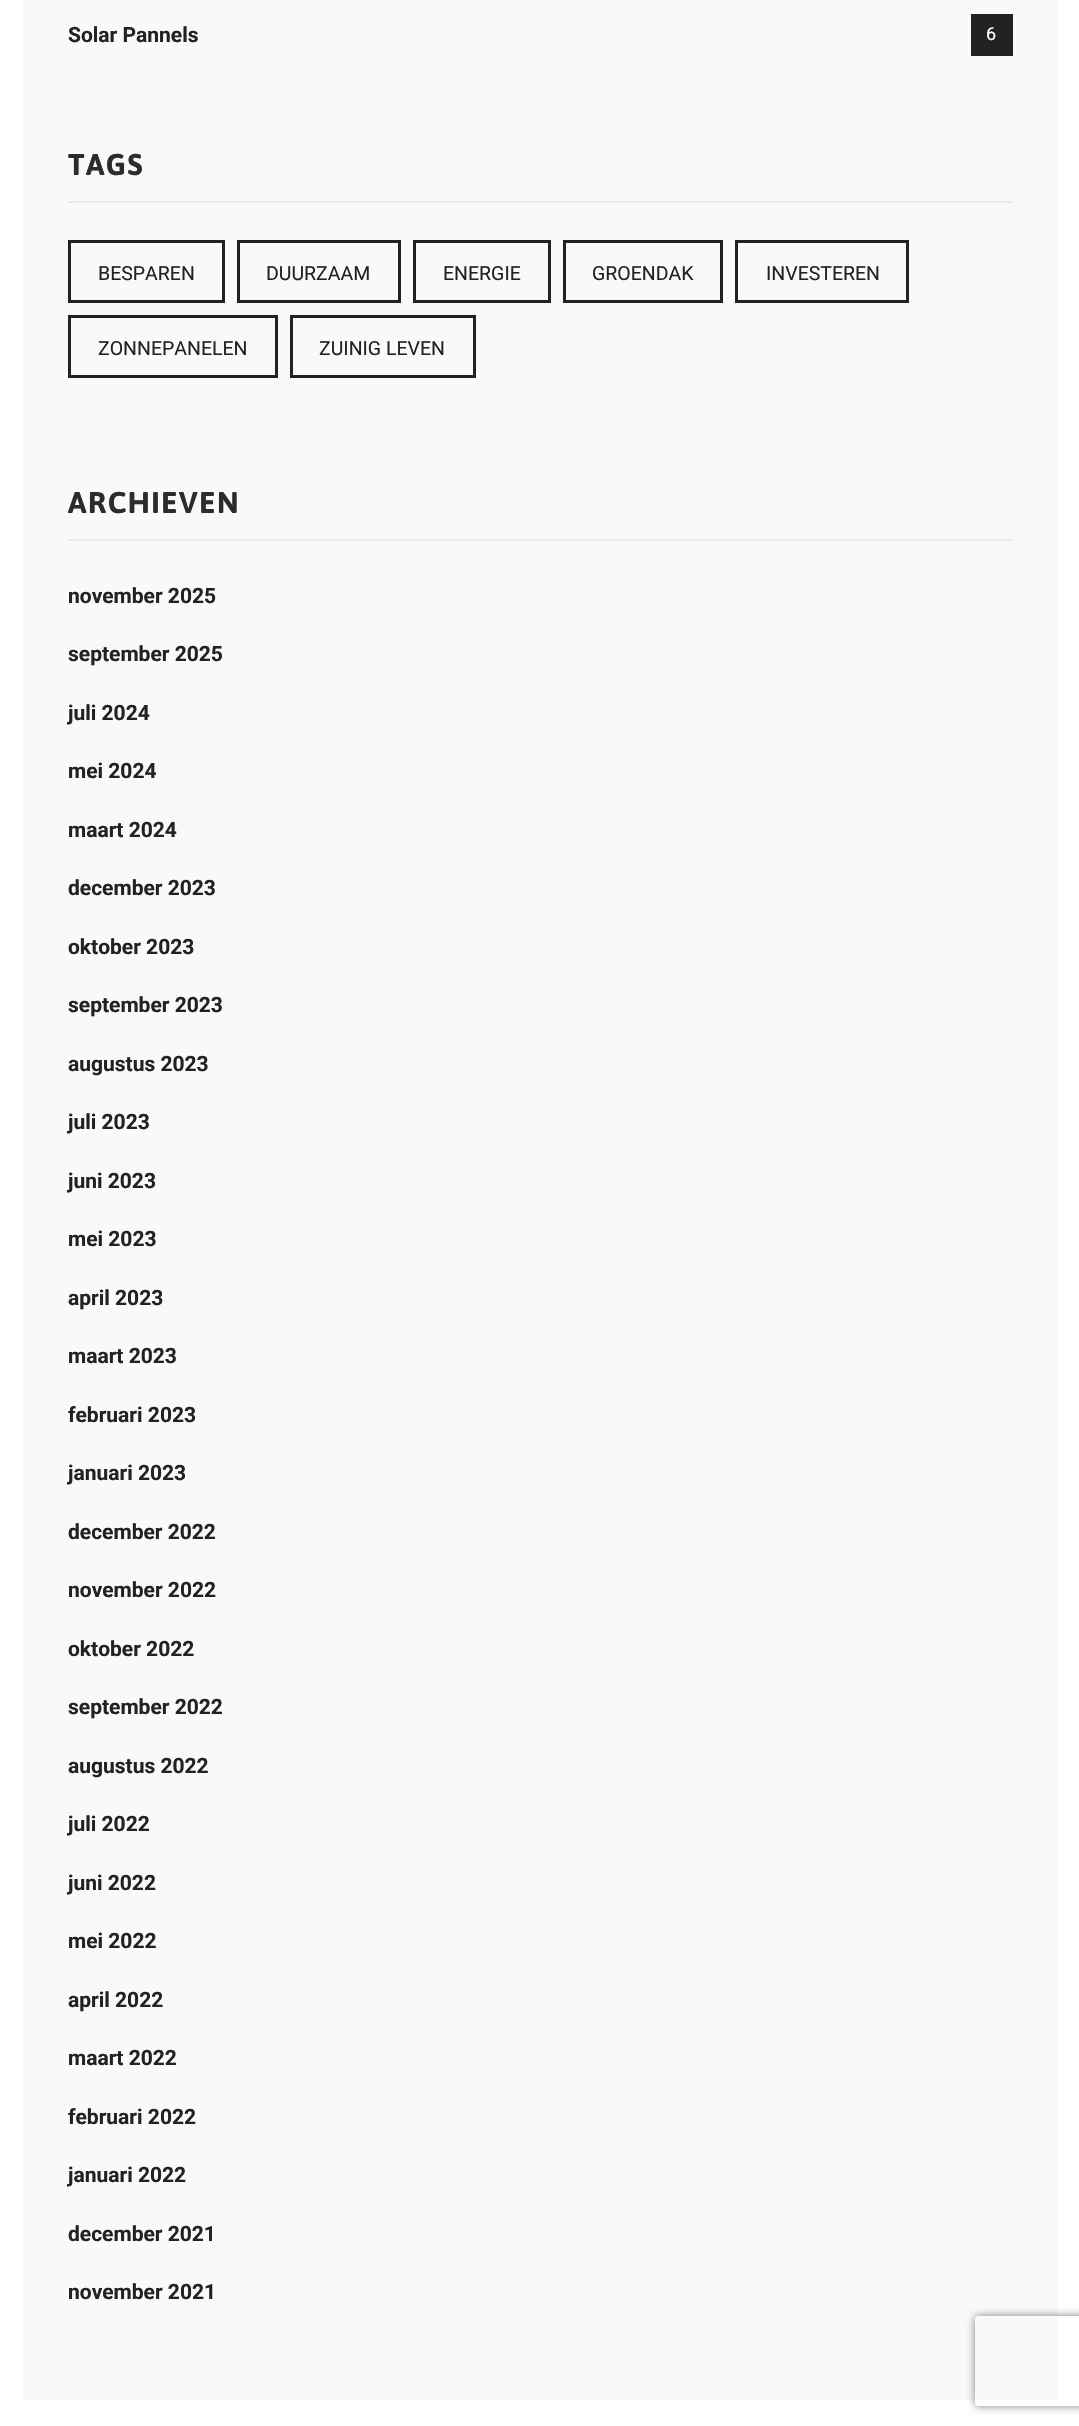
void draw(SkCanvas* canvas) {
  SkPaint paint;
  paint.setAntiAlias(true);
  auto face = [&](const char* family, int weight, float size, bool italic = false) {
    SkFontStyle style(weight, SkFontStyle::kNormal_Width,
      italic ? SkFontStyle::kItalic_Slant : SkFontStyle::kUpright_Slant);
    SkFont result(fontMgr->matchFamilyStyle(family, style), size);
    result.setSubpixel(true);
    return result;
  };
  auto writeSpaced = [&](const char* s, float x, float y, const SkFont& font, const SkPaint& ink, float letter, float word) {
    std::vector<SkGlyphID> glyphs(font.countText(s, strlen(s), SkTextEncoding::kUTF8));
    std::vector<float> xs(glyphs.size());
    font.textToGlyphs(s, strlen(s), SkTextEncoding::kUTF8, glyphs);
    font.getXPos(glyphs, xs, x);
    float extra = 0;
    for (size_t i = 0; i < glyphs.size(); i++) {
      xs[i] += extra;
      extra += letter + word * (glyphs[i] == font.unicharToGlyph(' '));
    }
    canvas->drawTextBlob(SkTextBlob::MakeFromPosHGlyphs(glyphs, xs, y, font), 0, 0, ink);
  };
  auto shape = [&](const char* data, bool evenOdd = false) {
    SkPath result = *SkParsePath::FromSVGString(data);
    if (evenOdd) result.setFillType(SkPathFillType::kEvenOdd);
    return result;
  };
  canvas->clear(0xffffffff);
  {
    const struct { float x, y, w, h; SkColor color; } items[] = {
      {23, 0, 1035, 2400, 0xfff7f9fa},
      {971, 14, 42, 42, 0xff222222},
      {68, 201, 945, 2, 0xffe8e9ea},
    };
    for (auto [x, y, w, h, color] : items) {
      paint.setColor(color);
      canvas->drawRect(SkRect::MakeXYWH(x, y, w, h), paint);
    }
  }
  paint.setStroke(true);
  paint.setStrokeWidth(3);
  paint.setColor(0xff222222);
  canvas->drawRect(SkRect::MakeXYWH(69.5f, 241.5f, 154, 60), paint);
  canvas->drawRect(SkRect::MakeXYWH(238.5f, 241.5f, 161, 60), paint);
  canvas->drawRect(SkRect::MakeXYWH(414.5f, 241.5f, 135, 60), paint);
  canvas->drawRect(SkRect::MakeXYWH(564.5f, 241.5f, 157, 60), paint);
  canvas->drawRect(SkRect::MakeXYWH(736.5f, 241.5f, 171, 60), paint);
  canvas->drawRect(SkRect::MakeXYWH(69.5f, 316.5f, 207, 60), paint);
  canvas->drawRect(SkRect::MakeXYWH(291.5f, 316.5f, 183, 60), paint);
  paint.setStroke(false);
  paint.setColor(0xffe8e9ea);
  canvas->drawRect(SkRect::MakeXYWH(68, 539, 945, 2), paint);
  canvas->save();
  canvas->clipPath(shape("M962 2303H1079V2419H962ZM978 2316H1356C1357.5 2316 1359 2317.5 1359 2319V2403C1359 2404.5 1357.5 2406 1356 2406H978C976.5 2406 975 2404.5 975 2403V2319C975 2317.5 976.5 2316 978 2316Z", true), true);
  paint.setColor(0xff808080);
  paint.setMaskFilter(SkMaskFilter::MakeBlur(kNormal_SkBlurStyle, 4));
  canvas->drawRoundRect(SkRect::MakeXYWH(975, 2316, 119, 90), 3, 3, paint);
  paint.setMaskFilter(nullptr);
  canvas->restore();
  auto f0 = face("Roboto", 700, 21);
  paint.setColor(0xff222222);
  canvas->drawString("Solar Pannels", 68, 42, f0, paint);
  auto f1 = face("Roboto", 400, 18);
  paint.setColor(0xffffffff);
  canvas->drawString("6", 986, 40, f1, paint);
  auto f2 = face("Asap", 700, 30);
  paint.setColor(0xff2c2c2c);
  writeSpaced("TAGS", 68, 175, f2, paint, 1.5f, 0);
  auto f3 = face("Roboto", 400, 19.5f);
  paint.setColor(0xff222222);
  {
    const struct { const char* s; float x, y; } items[] = {
      {"BESPAREN", 98, 280},
      {"DUURZAAM", 266, 280},
      {"ENERGIE", 443, 280},
      {"GROENDAK", 592, 280},
      {"INVESTEREN", 766, 280},
      {"ZONNEPANELEN", 98, 355},
      {"ZUINIG LEVEN", 319, 355},
    };
    for (auto [s, x, y] : items) {
      canvas->drawString(s, x, y, f3, paint);
    }
  }
  paint.setColor(0xff2c2c2c);
  writeSpaced("ARCHIEVEN", 68, 513, f2, paint, 1.5f, 0);
  paint.setColor(0xff222222);
  {
    const struct { const char* s; float x, y; } items[] = {
      {"november 2025", 68, 603},
      {"september 2025", 68, 661},
      {"juli 2024", 68, 720},
      {"mei 2024", 68, 778},
      {"maart 2024", 68, 837},
      {"december 2023", 68, 895},
      {"oktober 2023", 68, 954},
      {"september 2023", 68, 1012},
      {"augustus 2023", 68, 1071},
      {"juli 2023", 68, 1129},
      {"juni 2023", 68, 1188},
      {"mei 2023", 68, 1246},
      {"april 2023", 68, 1305},
      {"maart 2023", 68, 1363},
      {"februari 2023", 68, 1422},
      {"januari 2023", 68, 1480},
      {"december 2022", 68, 1539},
      {"november 2022", 68, 1597},
      {"oktober 2022", 68, 1656},
      {"september 2022", 68, 1714},
      {"augustus 2022", 68, 1773},
      {"juli 2022", 68, 1831},
      {"juni 2022", 68, 1890},
      {"mei 2022", 68, 1948},
      {"april 2022", 68, 2007},
      {"maart 2022", 68, 2065},
      {"februari 2022", 68, 2124},
      {"januari 2022", 68, 2182},
      {"december 2021", 68, 2241},
      {"november 2021", 68, 2299},
    };
    for (auto [s, x, y] : items) {
      canvas->drawString(s, x, y, f0, paint);
    }
  }
}
